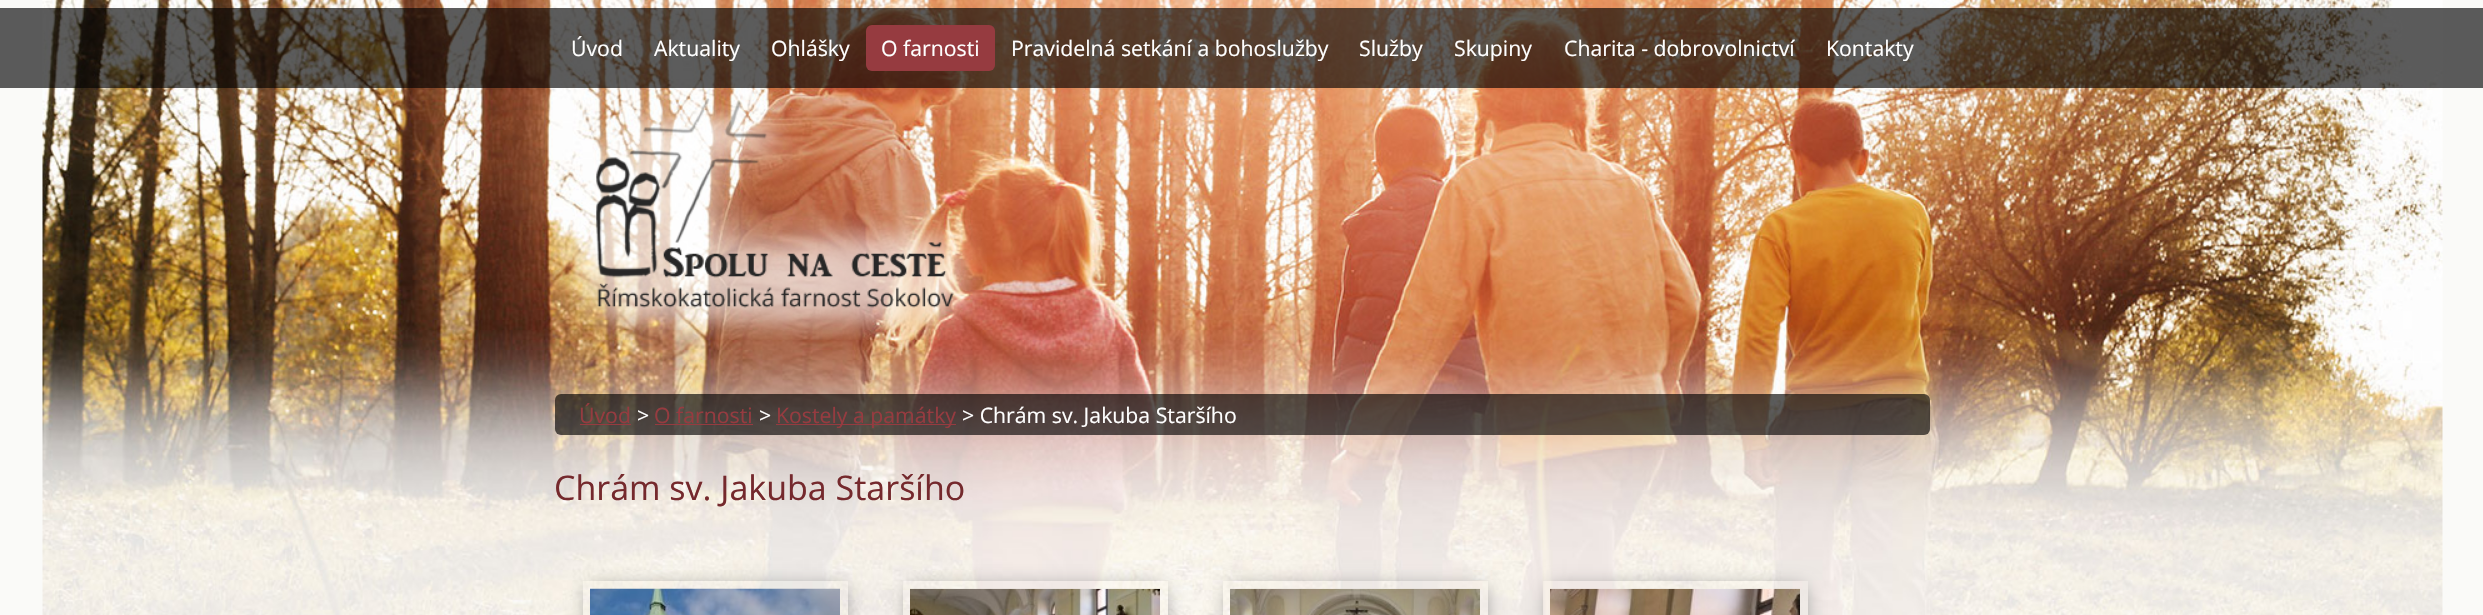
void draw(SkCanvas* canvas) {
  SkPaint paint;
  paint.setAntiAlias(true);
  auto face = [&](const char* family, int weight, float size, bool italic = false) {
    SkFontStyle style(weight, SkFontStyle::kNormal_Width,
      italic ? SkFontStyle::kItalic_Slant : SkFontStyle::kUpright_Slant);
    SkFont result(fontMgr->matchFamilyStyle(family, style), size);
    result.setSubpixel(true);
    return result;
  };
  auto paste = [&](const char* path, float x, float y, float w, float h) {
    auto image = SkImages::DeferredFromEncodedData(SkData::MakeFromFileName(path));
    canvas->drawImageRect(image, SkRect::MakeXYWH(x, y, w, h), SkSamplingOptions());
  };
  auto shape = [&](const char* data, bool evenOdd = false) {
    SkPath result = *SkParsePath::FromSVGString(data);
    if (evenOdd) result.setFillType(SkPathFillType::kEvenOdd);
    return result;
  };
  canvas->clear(0xfffafaf8);
  paste("img/1.png", 42, 0, 2401, 615);
  paint.setColor(0xa3000000);
  canvas->drawRect(SkRect::MakeXYWH(0, 8, 2483, 80), paint);
  paint.setColor(0xff963b40);
  canvas->drawRoundRect(SkRect::MakeXYWH(866, 25, 129, 46), 6, 6, paint);
  paste("img/2.png", 567, 98, 420, 242);
  paint.setColor(0xa3000000);
  canvas->drawRoundRect(SkRect::MakeXYWH(555, 394, 1375, 41), 6, 6, paint);
  {
    const struct { float x, y, w, h; SkColor color; } items[] = {
      {580, 424, 51, 1, 0xff963b40},
      {655, 424, 98, 1, 0xff963b40},
      {776, 424, 180, 1, 0xff963b40},
    };
    for (auto [x, y, w, h, color] : items) {
      paint.setColor(color);
      canvas->drawRect(SkRect::MakeXYWH(x, y, w, h), paint);
    }
  }
  canvas->save();
  canvas->clipPath(shape("M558 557H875V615H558ZM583 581H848V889H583Z", true), true);
  paint.setColor(0xff888888);
  paint.setMaskFilter(SkMaskFilter::MakeBlur(kNormal_SkBlurStyle, 10));
  canvas->drawRect(SkRect::MakeXYWH(589, 588, 255, 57), paint);
  paint.setMaskFilter(nullptr);
  canvas->restore();
  paste("img/3.png", 590, 588, 250, 27);
  canvas->save();
  canvas->clipPath(shape("M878 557H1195V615H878ZM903 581H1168V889H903Z", true), true);
  paint.setMaskFilter(SkMaskFilter::MakeBlur(kNormal_SkBlurStyle, 10));
  canvas->drawRect(SkRect::MakeXYWH(909, 588, 255, 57), paint);
  paint.setMaskFilter(nullptr);
  canvas->restore();
  paste("img/4.png", 910, 588, 250, 27);
  canvas->save();
  canvas->clipPath(shape("M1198 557H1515V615H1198ZM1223 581H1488V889H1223Z", true), true);
  paint.setMaskFilter(SkMaskFilter::MakeBlur(kNormal_SkBlurStyle, 10));
  canvas->drawRect(SkRect::MakeXYWH(1229, 588, 255, 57), paint);
  paint.setMaskFilter(nullptr);
  canvas->restore();
  paste("img/5.png", 1230, 588, 250, 27);
  canvas->save();
  canvas->clipPath(shape("M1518 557H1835V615H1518ZM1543 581H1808V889H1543Z", true), true);
  paint.setMaskFilter(SkMaskFilter::MakeBlur(kNormal_SkBlurStyle, 10));
  canvas->drawRect(SkRect::MakeXYWH(1549, 588, 255, 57), paint);
  paint.setMaskFilter(nullptr);
  canvas->restore();
  paste("img/6.png", 1550, 588, 250, 27);
  auto f0 = face("Open Sans", 400, 21.25f);
  paint.setColor(0xffffffff);
  {
    const struct { const char* s; float x, y; } items[] = {
      {"Úvod", 571, 56},
      {"Aktuality", 654, 56},
      {"Ohlášky", 771, 56},
      {"O farnosti", 881, 56},
      {"Pravidelná setkání a bohoslužby", 1011, 56},
      {"Služby", 1359, 56},
      {"Skupiny", 1454, 56},
      {"Charita - dobrovolnictví", 1564, 56},
      {"Kontakty", 1826, 56},
    };
    for (auto [s, x, y] : items) {
      canvas->drawString(s, x, y, f0, paint);
    }
  }
  paint.setColor(0xff963b40);
  canvas->drawString("Úvod", 579, 423, f0, paint);
  paint.setColor(0xffffffff);
  canvas->drawString(">", 637, 423, f0, paint);
  paint.setColor(0xff963b40);
  canvas->drawString("O farnosti", 654, 423, f0, paint);
  paint.setColor(0xffffffff);
  canvas->drawString(">", 759, 423, f0, paint);
  paint.setColor(0xff963b40);
  canvas->drawString("Kostely a památky", 776, 423, f0, paint);
  paint.setColor(0xffffffff);
  canvas->drawString("> Chrám sv. Jakuba Staršího", 962, 423, f0, paint);
  auto f1 = face("Open Sans", 400, 34);
  paint.setColor(0xff75292d);
  canvas->drawString("Chrám sv. Jakuba Staršího", 554, 500, f1, paint);
}
